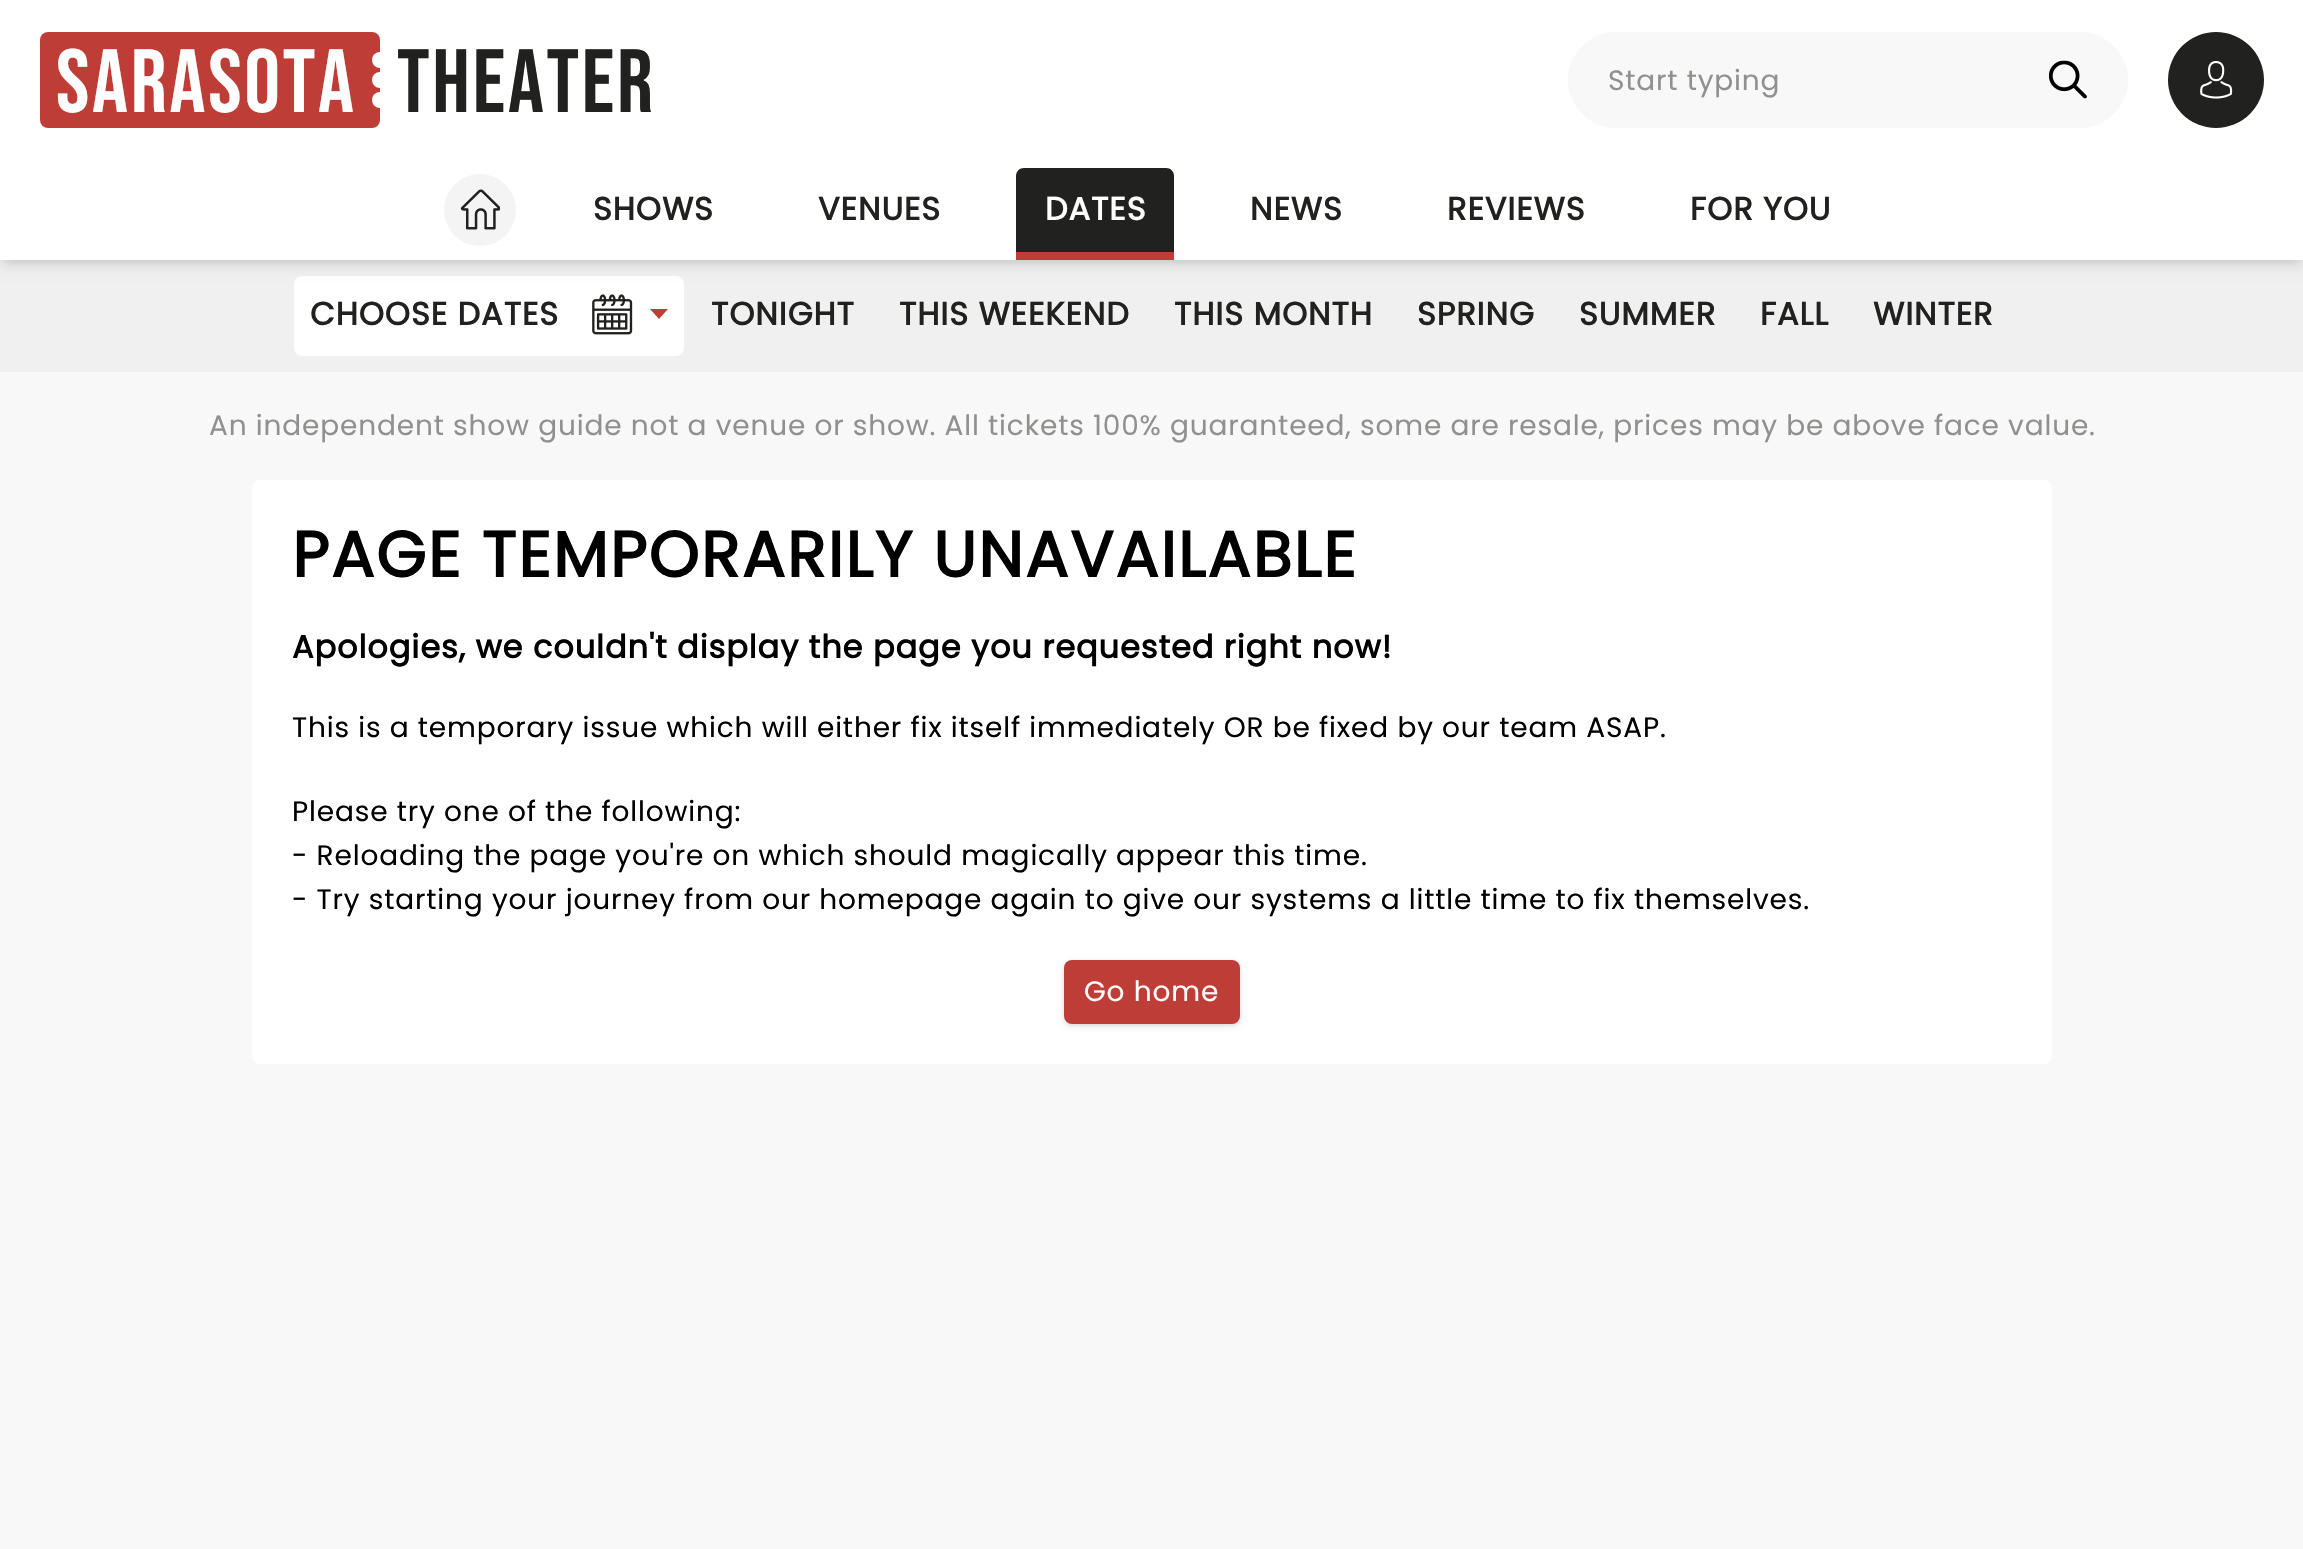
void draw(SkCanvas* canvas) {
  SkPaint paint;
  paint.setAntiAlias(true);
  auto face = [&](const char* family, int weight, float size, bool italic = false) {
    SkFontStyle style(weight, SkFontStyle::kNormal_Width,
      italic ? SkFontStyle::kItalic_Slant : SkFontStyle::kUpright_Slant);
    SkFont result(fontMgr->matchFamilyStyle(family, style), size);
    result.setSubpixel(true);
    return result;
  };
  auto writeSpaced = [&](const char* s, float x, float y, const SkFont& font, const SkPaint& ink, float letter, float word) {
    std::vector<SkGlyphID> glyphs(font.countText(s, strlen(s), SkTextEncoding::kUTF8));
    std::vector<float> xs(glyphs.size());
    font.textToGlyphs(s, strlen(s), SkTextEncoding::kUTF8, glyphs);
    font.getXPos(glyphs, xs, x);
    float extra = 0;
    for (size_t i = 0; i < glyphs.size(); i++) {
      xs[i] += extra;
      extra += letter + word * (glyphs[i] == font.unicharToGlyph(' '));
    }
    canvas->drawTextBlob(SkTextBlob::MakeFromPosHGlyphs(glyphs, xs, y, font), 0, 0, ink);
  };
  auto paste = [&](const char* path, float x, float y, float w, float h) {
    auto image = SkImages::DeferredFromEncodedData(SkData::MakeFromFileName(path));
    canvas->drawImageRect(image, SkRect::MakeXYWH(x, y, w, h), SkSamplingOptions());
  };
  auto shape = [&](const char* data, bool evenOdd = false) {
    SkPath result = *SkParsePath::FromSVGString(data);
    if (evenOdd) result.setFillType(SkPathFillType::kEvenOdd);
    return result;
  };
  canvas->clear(0xfff8f8f8);
  paint.setColor(0xfff0f0f0);
  canvas->drawRect(SkRect::MakeXYWH(0, 260, 2303, 112), paint);
  paint.setColor(0x1a000000);
  paint.setMaskFilter(SkMaskFilter::MakeBlur(kNormal_SkBlurStyle, 4));
  canvas->drawRect(SkRect::MakeXYWH(4, 136, 2296, 124), paint);
  paint.setMaskFilter(nullptr);
  paint.setColor(0xffffffff);
  canvas->drawRoundRect(SkRect::MakeXYWH(294, 276, 390, 80), 8, 8, paint);
  paint.setColor(0x1a000000);
  paint.setMaskFilter(SkMaskFilter::MakeBlur(kNormal_SkBlurStyle, 6));
  canvas->drawRect(SkRect::MakeXYWH(2, 138, 2300, 128), paint);
  paint.setMaskFilter(nullptr);
  paint.setColor(0xffffffff);
  canvas->drawRect(SkRect::MakeXYWH(0, 0, 2303, 260), paint);
  paint.setColor(0xffbf3d37);
  canvas->drawRoundRect(SkRect::MakeXYWH(40, 32, 340, 96), 8, 8, paint);
  paint.setColor(0xffffffff);
  canvas->drawCircle(380, 60, 8, paint);
  canvas->drawCircle(380, 80, 8, paint);
  canvas->drawCircle(380, 100, 8, paint);
  paint.setColor(0xfff8f8f8);
  canvas->drawRoundRect(SkRect::MakeXYWH(1568, 32, 560, 96), 48, 48, paint);
  paste("img/1.png", 2049, 60, 38, 39);
  paint.setColor(0xff212120);
  canvas->drawCircle(2216, 80, 48, paint);
  paste("img/2.png", 2200, 61, 33, 38);
  paint.setColor(0xfff4f4f4);
  canvas->drawCircle(480, 210, 36, paint);
  paste("img/3.png", 460, 189, 40, 41);
  paint.setColor(0xff212120);
  canvas->drawPath(shape("M1024 168H1166C1170.5 168 1174 171.5 1174 176V252H1016V176C1016 171.5 1019.5 168 1024 168Z"), paint);
  paint.setColor(0xffbf3d37);
  canvas->drawRect(SkRect::MakeXYWH(1016, 252, 158, 8), paint);
  paste("img/4.png", 592, 294, 41, 41);
  canvas->drawPath(shape("M659 319L650 309H668Z"), paint);
  paint.setColor(0xffffffff);
  canvas->drawRoundRect(SkRect::MakeXYWH(252, 480, 1800, 584), 8, 8, paint);
  paint.setColor(0x1a000000);
  paint.setMaskFilter(SkMaskFilter::MakeBlur(kNormal_SkBlurStyle, 2));
  canvas->drawRoundRect(SkRect::MakeXYWH(1066, 964, 172, 60), 6, 6, paint);
  paint.setMaskFilter(nullptr);
  paint.setMaskFilter(SkMaskFilter::MakeBlur(kNormal_SkBlurStyle, 3));
  canvas->drawRoundRect(SkRect::MakeXYWH(1064, 962, 176, 64), 8, 8, paint);
  paint.setMaskFilter(nullptr);
  paint.setColor(0xffbf3d37);
  canvas->drawRoundRect(SkRect::MakeXYWH(1064, 960, 176, 64), 8, 8, paint);
  auto f0 = face("Bebas Neue", 400, 89.5f);
  paint.setColor(0xffffffff);
  writeSpaced("Sarasota", 56, 112, f0, paint, 2.75f, 0);
  paint.setColor(0xff212120);
  writeSpaced("Theater", 397, 112, f0, paint, 2.75f, 0);
  auto f1 = face("Poppins", 400, 28);
  paint.setColor(0xff90908f);
  writeSpaced("Start typing", 1608, 90, f1, paint, 0.84f, 0);
  auto f2 = face("Poppins", 700, 32);
  paint.setColor(0xff212120);
  writeSpaced("SHOWS", 593, 220, f2, paint, 0.95f, 0);
  writeSpaced("VENUES", 818, 220, f2, paint, 0.95f, 0);
  paint.setColor(0xffffffff);
  writeSpaced("DATES", 1045, 220, f2, paint, 0.95f, 0);
  paint.setColor(0xff212120);
  {
    const struct { const char* s; float x, y; } items[] = {
      {"NEWS", 1250, 220},
      {"REVIEWS", 1447, 220},
      {"FOR YOU", 1690, 220},
      {"CHOOSE DATES", 310, 325},
      {"TONIGHT", 711, 325},
      {"THIS WEEKEND", 899, 325},
      {"THIS MONTH", 1174, 325},
      {"SPRING", 1417, 325},
      {"SUMMER", 1579, 325},
      {"FALL", 1760, 325},
      {"WINTER", 1873, 325},
    };
    for (auto [s, x, y] : items) {
      writeSpaced(s, x, y, f2, paint, 0.95f, 0);
    }
  }
  paint.setColor(0xff90908f);
  writeSpaced("An independent show guide not a venue or show. All tickets 100% guaranteed, some are resale, prices may be above face value.", 209, 435, f1, paint, 0.84f, 0);
  auto f3 = face("Poppins", 700, 64);
  paint.setColor(0xff000000);
  writeSpaced("PAGE TEMPORARILY UNAVAILABLE", 292, 577, f3, paint, 1.9f, 0);
  writeSpaced("Apologies, we couldn't display the page you requested right now!", 292, 658, f2, paint, 0.95f, 0);
  {
    const struct { const char* s; float x, y; } items[] = {
      {"This is a temporary issue which will either fix itself immediately OR be fixed by our team ASAP.", 292, 737},
      {"Please try one of the following:", 292, 821},
      {"- Reloading the page you're on which should magically appear this time.", 292, 865},
      {"- Try starting your journey from our homepage again to give our systems a little time to fix themselves.", 292, 909},
    };
    for (auto [s, x, y] : items) {
      writeSpaced(s, x, y, f1, paint, 0.84f, 0);
    }
  }
  paint.setColor(0xffffffff);
  writeSpaced("Go home", 1084, 1001, f1, paint, 0.84f, 0);
}
